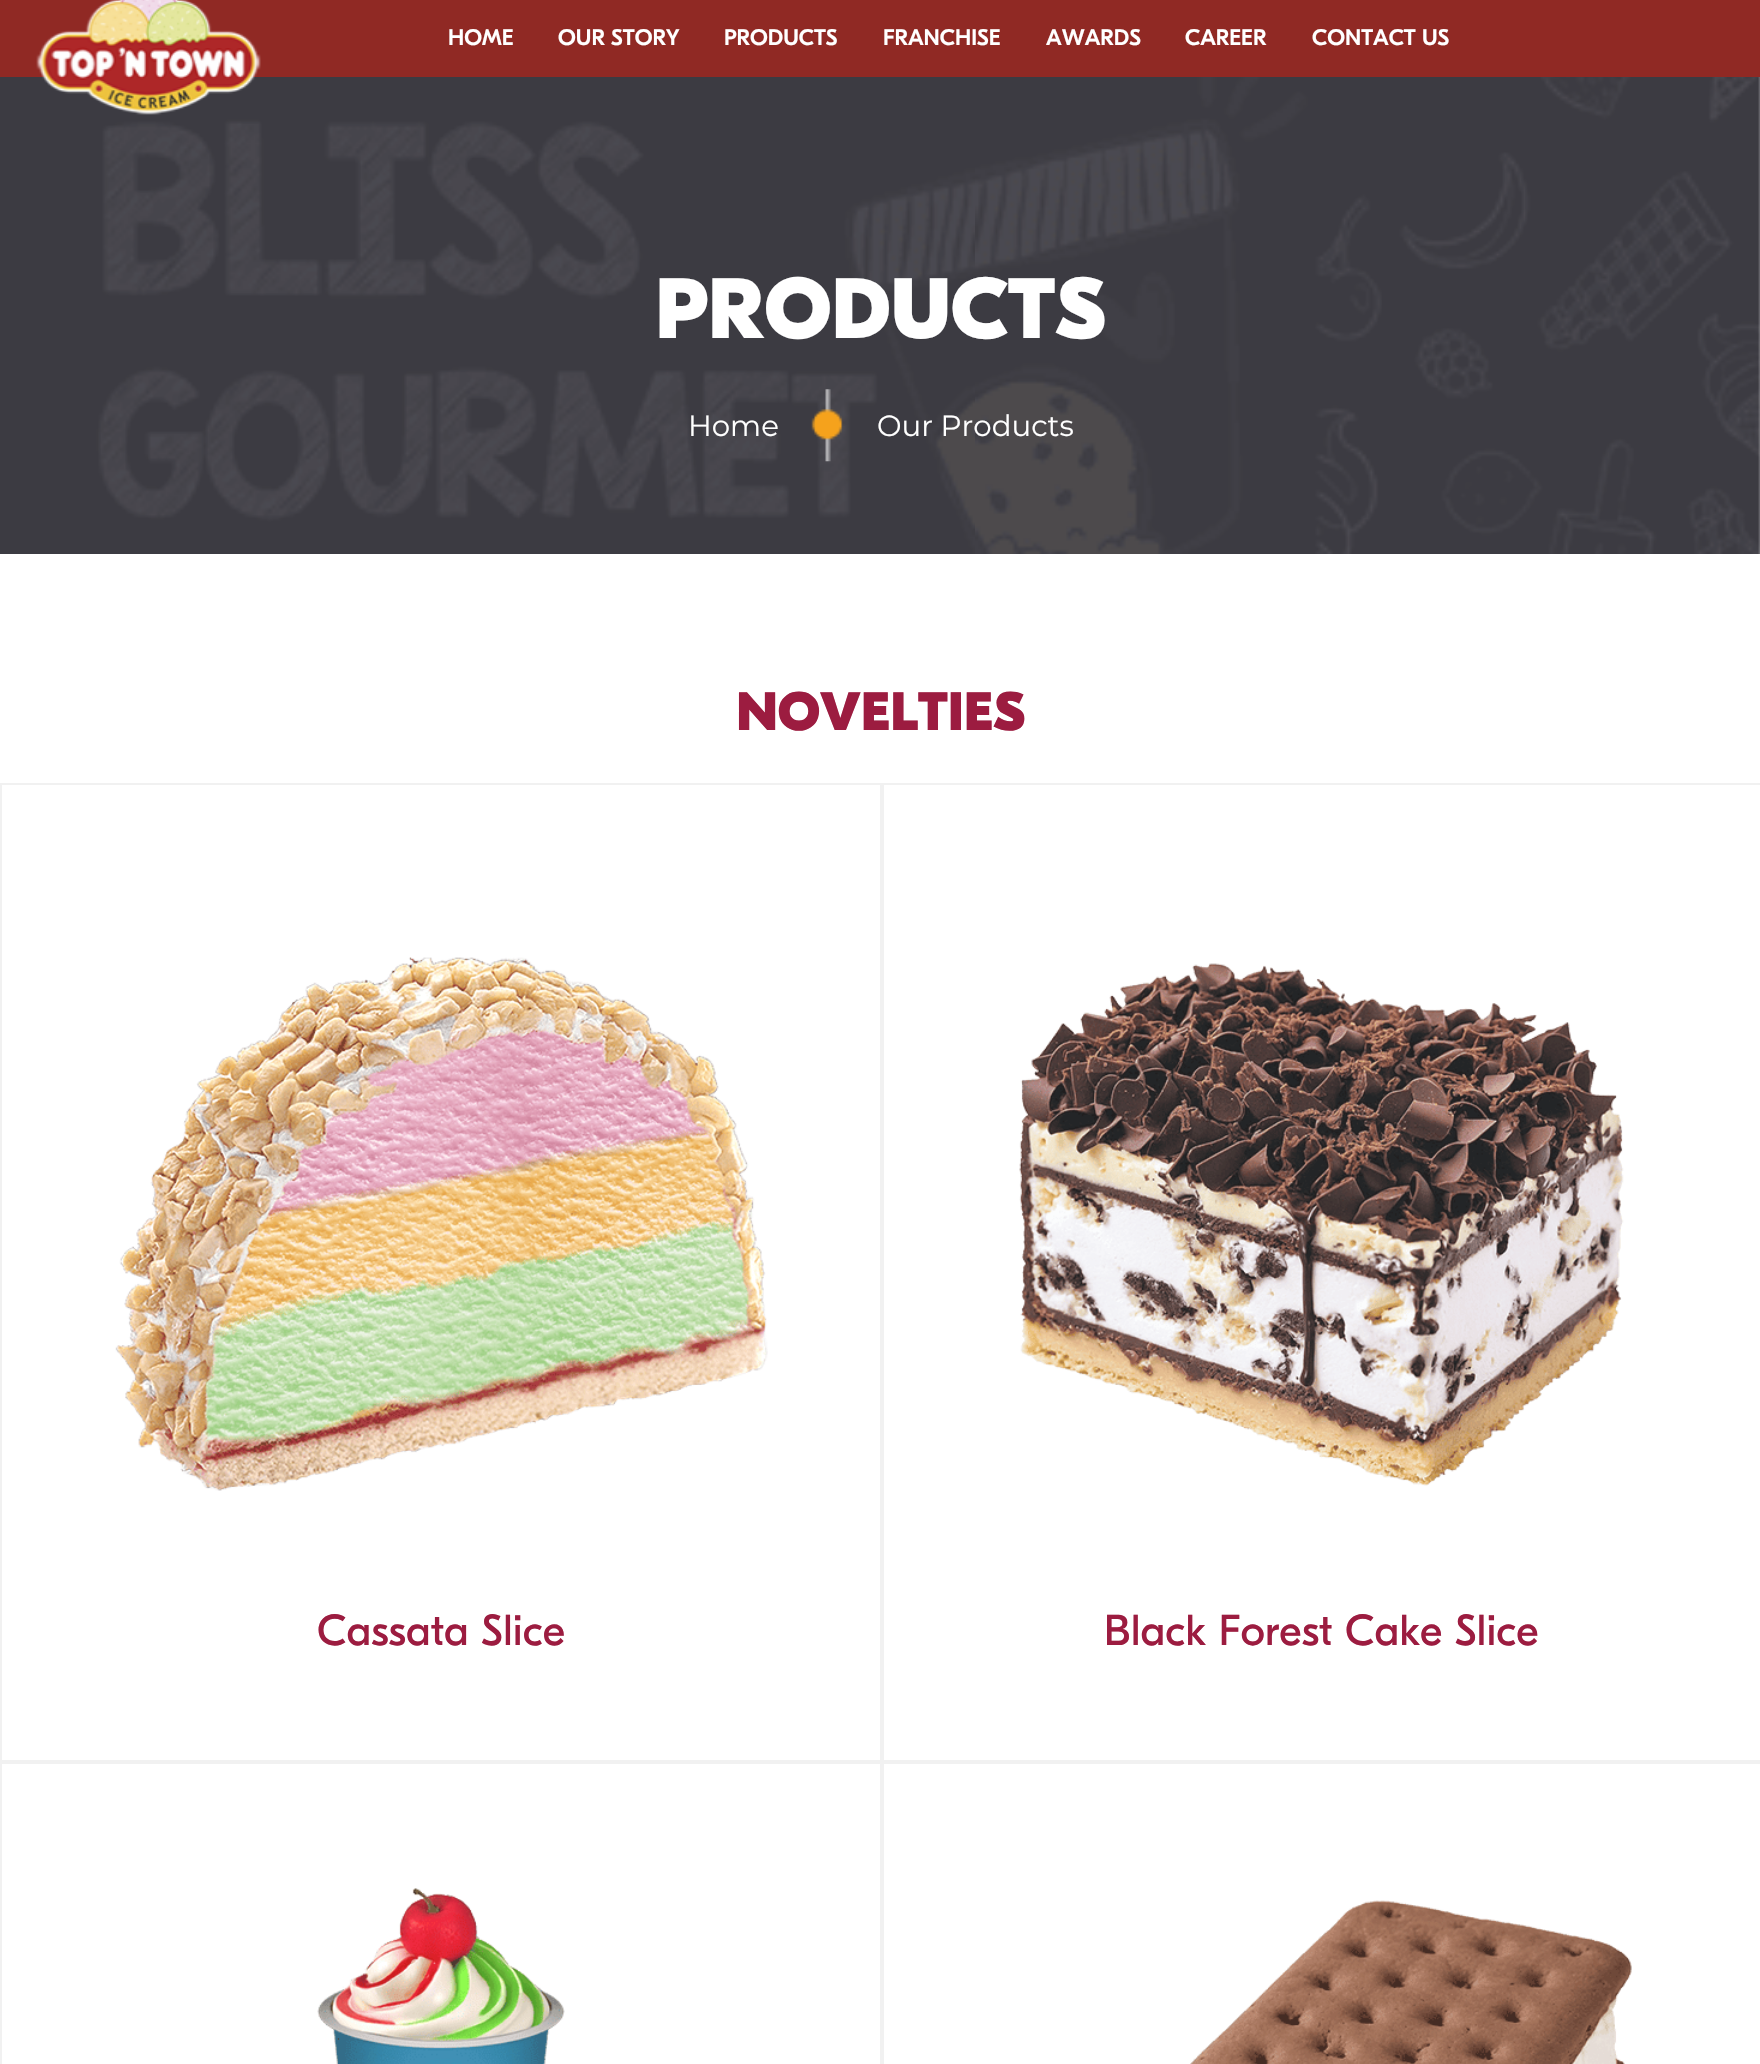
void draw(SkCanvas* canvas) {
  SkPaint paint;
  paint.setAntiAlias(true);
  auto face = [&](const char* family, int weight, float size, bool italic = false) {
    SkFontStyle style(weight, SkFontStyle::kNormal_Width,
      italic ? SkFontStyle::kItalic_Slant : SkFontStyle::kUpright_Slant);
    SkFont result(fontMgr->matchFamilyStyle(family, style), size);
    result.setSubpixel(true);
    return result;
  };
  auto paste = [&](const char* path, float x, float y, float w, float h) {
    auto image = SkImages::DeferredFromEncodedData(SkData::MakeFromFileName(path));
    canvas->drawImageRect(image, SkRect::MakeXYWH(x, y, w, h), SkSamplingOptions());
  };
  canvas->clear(0xffffffff);
  paint.setColor(0xff902924);
  canvas->drawRect(SkRect::MakeXYWH(0, 0, 1760, 77), paint);
  paste("img/2.png", 0, 77, 1760, 477);
  paste("img/1.png", 36, 0, 225, 115);
  paste("img/3.png", 811, 389, 32, 73);
  paint.setStroke(true);
  paint.setStrokeWidth(2);
  paint.setColor(0xfff1f1f1);
  canvas->drawRect(SkRect::MakeXYWH(1, 784, 880, 977), paint);
  paste("img/4.png", 115, 957, 653, 534);
  canvas->drawRect(SkRect::MakeXYWH(883, 784, 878, 977), paint);
  paste("img/5.png", 1019, 963, 605, 523);
  canvas->drawRect(SkRect::MakeXYWH(1, 1763, 880, 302), paint);
  paste("img/6.png", 317, 1888, 248, 176);
  canvas->drawRect(SkRect::MakeXYWH(883, 1763, 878, 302), paint);
  paste("img/7.png", 1190, 1900, 442, 164);
  auto f0 = face("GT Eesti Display", 500, 22.5f);
  paint.setStroke(false);
  paint.setColor(0xffffffff);
  {
    const struct { const char* s; float x, y; } items[] = {
      {"HOME", 448, 45},
      {"OUR STORY", 558, 45},
      {"PRODUCTS", 724, 45},
      {"FRANCHISE", 883, 45},
      {"AWARDS", 1046, 45},
      {"CAREER", 1185, 45},
      {"CONTACT US", 1312, 45},
    };
    for (auto [s, x, y] : items) {
      canvas->drawString(s, x, y, f0, paint);
    }
  }
  auto f1 = face("GT Eesti Display", 800, 85.5f);
  canvas->drawString("PRODUCTS", 655, 338, f1, paint);
  auto f2 = face("Montserrat", 100, 29.25f);
  canvas->drawString("Home", 688, 436, f2, paint);
  canvas->drawString("Our Products", 877, 436, f2, paint);
  auto f3 = face("GT Eesti Display", 800, 54);
  paint.setColor(0xff9c1c40);
  canvas->drawString("NOVELTIES", 736, 730, f3, paint);
  auto f4 = face("GT Eesti Display", 400, 43.25f);
  canvas->drawString("Cassata Slice", 317, 1645, f4, paint);
  canvas->drawString("Black Forest Cake Slice", 1104, 1645, f4, paint);
}
